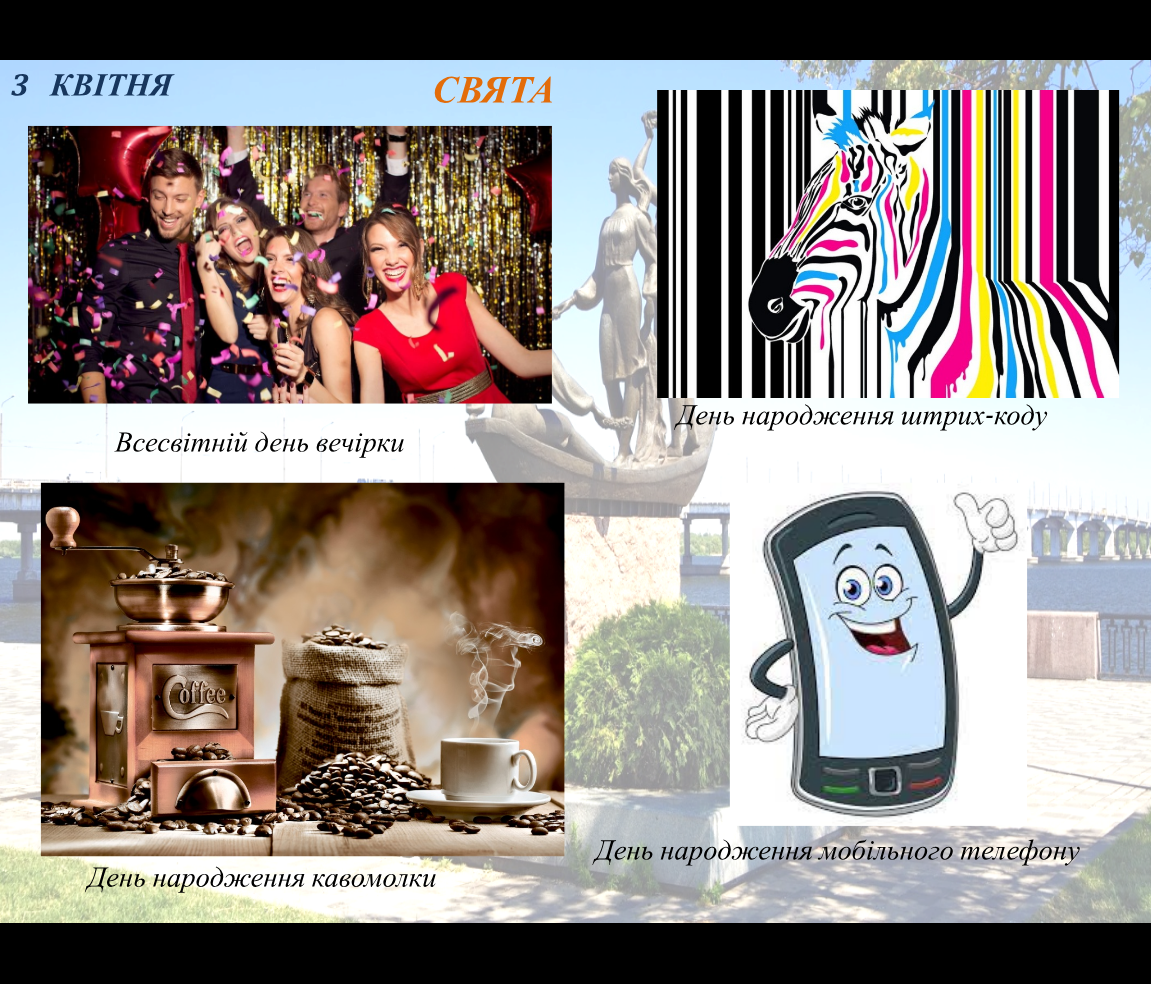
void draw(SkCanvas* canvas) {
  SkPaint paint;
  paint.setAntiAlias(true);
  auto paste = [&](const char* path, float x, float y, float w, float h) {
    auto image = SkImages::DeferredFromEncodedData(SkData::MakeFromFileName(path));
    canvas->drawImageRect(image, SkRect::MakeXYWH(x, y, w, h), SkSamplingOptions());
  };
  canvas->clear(0xff000000);
  paste("img/1.png", 0, 60, 1151, 863);
}
